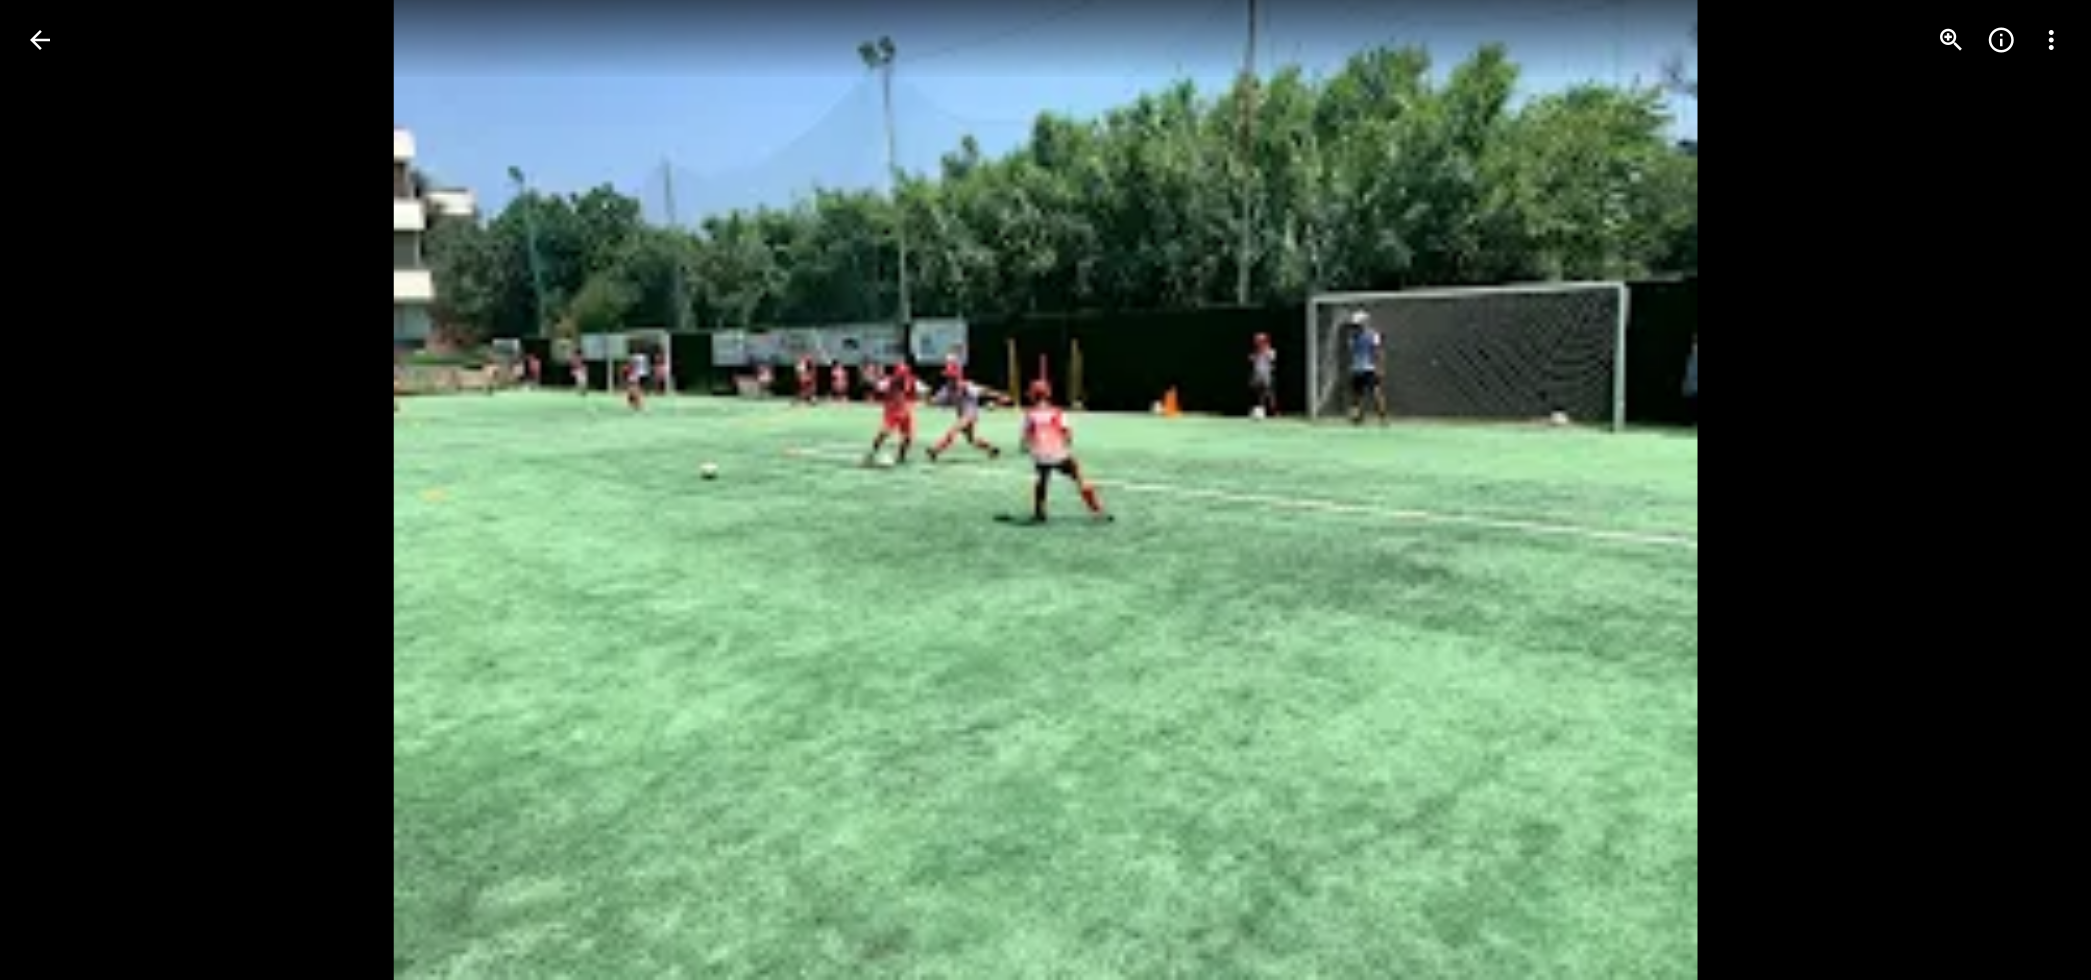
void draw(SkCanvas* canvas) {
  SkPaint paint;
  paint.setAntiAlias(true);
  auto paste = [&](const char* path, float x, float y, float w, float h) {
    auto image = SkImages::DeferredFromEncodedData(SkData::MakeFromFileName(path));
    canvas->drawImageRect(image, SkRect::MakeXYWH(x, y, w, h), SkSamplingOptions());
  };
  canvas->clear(0xff000000);
  paste("img/5.png", 393, 0, 1305, 980);
  {
    const SkColor colors[] = {0x99000000, 0x00000000};
    const float stops[] = {0, 1};
    const SkPoint ends[] = {{1046, 0}, {1046, 80}};
    paint.setShader(SkGradientShader::MakeLinear(ends, colors, stops, 2, SkTileMode::kClamp));
    paint.setAlpha(255);
  }
  canvas->drawRect(SkRect::MakeXYWH(393, 0, 1305, 77), paint);
  paste("img/1.png", 30, 30, 20, 20);
  paste("img/2.png", 1940, 28, 22, 23);
  paste("img/3.png", 1988, 27, 26, 26);
  paste("img/4.png", 2048, 30, 6, 20);
}
